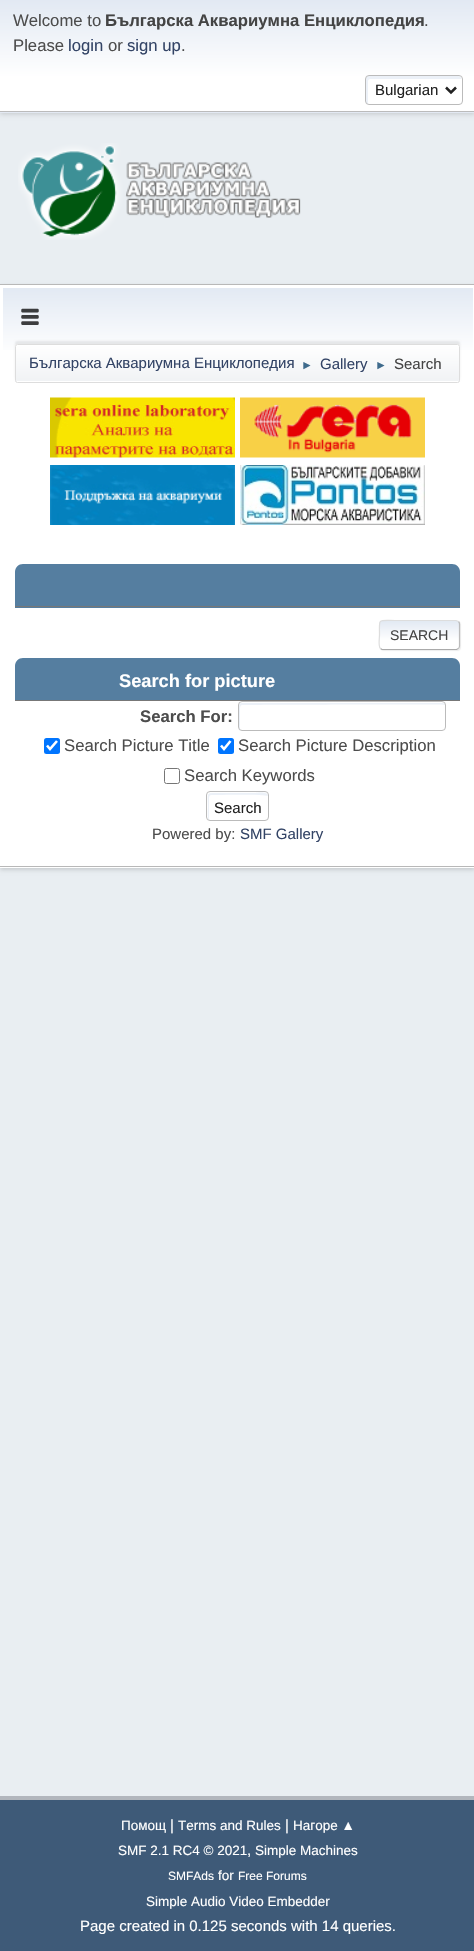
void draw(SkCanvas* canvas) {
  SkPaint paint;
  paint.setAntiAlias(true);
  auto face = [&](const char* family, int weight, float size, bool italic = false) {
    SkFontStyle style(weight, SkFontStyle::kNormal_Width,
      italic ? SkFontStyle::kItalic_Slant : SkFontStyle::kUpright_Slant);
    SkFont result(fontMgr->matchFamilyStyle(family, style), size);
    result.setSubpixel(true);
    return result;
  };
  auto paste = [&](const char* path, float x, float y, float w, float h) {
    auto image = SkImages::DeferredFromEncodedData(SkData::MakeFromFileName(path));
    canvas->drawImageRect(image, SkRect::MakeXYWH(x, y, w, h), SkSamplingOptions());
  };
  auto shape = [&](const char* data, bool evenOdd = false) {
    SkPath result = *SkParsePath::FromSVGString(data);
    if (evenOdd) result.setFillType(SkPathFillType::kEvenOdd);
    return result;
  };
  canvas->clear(0xffe9eef2);
  paint.setColor(0x29000000);
  paint.setMaskFilter(SkMaskFilter::MakeBlur(kNormal_SkBlurStyle, 2.5f));
  canvas->drawRect(SkRect::MakeXYWH(0, 1, 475, 113), paint);
  paint.setMaskFilter(nullptr);
  {
    const SkColor colors[] = {0xffe2e9f3, 0xffffffff};
    const float stops[] = {0, 0.7f};
    const SkPoint ends[] = {{238, 0}, {238, 111}};
    paint.setShader(SkGradientShader::MakeLinear(ends, colors, stops, 2, SkTileMode::kClamp));
    paint.setAlpha(255);
  }
  canvas->drawRect(SkRect::MakeXYWH(0, 0, 474, 111), paint);
  {
    const SkColor colors[] = {0xffe2e9f3, 0xffffffff};
    const float stops[] = {0, 0.7f};
    const SkPoint ends[] = {{238, 111}, {238, 223}};
    paint.setShader(SkGradientShader::MakeLinear(ends, colors, stops, 2, SkTileMode::kClamp));
    paint.setAlpha(255);
  }
  canvas->drawRect(SkRect::MakeXYWH(0, 112, 474, 1), paint);
  paint.setShader(nullptr);
  paint.setColor(0xffbbbbbb);
  canvas->drawRect(SkRect::MakeXYWH(0, 111, 474, 1), paint);
  paint.setColor(0xffecf1f8);
  canvas->drawPath(shape("M370 79H461V78C461 77 460 76 458 76H368C367 76 366 77 366 78V102C366 103 367 104 368 104V81C368 80 369 79 370 79Z"), paint);
  paint.setStroke(true);
  paint.setStrokeWidth(1);
  paint.setColor(0xffbbbbbb);
  canvas->drawRoundRect(SkRect::MakeXYWH(365.5f, 75.5f, 97, 29), 3.5f, 3.5f, paint);
  paint.setStrokeWidth(2.5f);
  paint.setColor(0xff222222);
  canvas->drawPath(shape("M446 87.5L451 92.5L456 87.5"), paint);
  paste("img/1.png", 18, 143, 283, 97);
  paint.setStroke(false);
  paint.setColor(0x24000000);
  paint.setMaskFilter(SkMaskFilter::MakeBlur(kNormal_SkBlurStyle, 2));
  canvas->drawRect(SkRect::MakeXYWH(0, 286, 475, 584), paint);
  paint.setMaskFilter(nullptr);
  {
    const struct { float x, y, w, h; SkColor color; } items[] = {
      {0, 285, 474, 583, 0xffffffff},
      {0, 284, 474, 1, 0xffb8b8b8},
      {0, 866, 474, 1, 0xffb8b8b8},
    };
    for (auto [x, y, w, h, color] : items) {
      paint.setColor(color);
      canvas->drawRect(SkRect::MakeXYWH(x, y, w, h), paint);
    }
  }
  {
    const SkColor colors[] = {0xffe2e9f3, 0xffffffff};
    const float stops[] = {0, 0.7f};
    const SkPoint ends[] = {{238, 287}, {238, 385}};
    paint.setShader(SkGradientShader::MakeLinear(ends, colors, stops, 2, SkTileMode::kClamp));
    paint.setAlpha(255);
  }
  canvas->drawRect(SkRect::MakeXYWH(3, 288, 470, 62), paint);
  paste("img/2.png", 21, 308, 18, 17);
  paint.setShader(nullptr);
  paint.setColor(0x14000000);
  paint.setMaskFilter(SkMaskFilter::MakeBlur(kNormal_SkBlurStyle, 1));
  canvas->drawRoundRect(SkRect::MakeXYWH(15, 341, 445, 39), 2.5f, 2.5f, paint);
  paint.setMaskFilter(nullptr);
  paint.setColor(0xffffffff);
  canvas->drawRoundRect(SkRect::MakeXYWH(15, 344, 445, 39), 2.5f, 2.5f, paint);
  {
    const SkColor colors[] = {0xffffffff, 0xfff1f3f5};
    const float stops[] = {0, 0.95f};
    const SkPoint ends[] = {{238, 345}, {238, 381}};
    paint.setShader(SkGradientShader::MakeLinear(ends, colors, stops, 2, SkTileMode::kClamp));
    paint.setAlpha(255);
  }
  canvas->drawRect(SkRect::MakeXYWH(15, 345, 445, 36), paint);
  paint.setStroke(true);
  paint.setStrokeWidth(1);
  paint.setShader(nullptr);
  paint.setColor(0xffdddddd);
  canvas->drawRoundRect(SkRect::MakeXYWH(15.5f, 344.5f, 444, 38), 2, 2, paint);
  paste("img/3.png", 50, 397, 185, 61);
  paste("img/4.png", 240, 397, 185, 61);
  paste("img/5.png", 50, 465, 185, 60);
  paste("img/6.png", 240, 465, 185, 60);
  paint.setStroke(false);
  paint.setColor(0xff557ea0);
  canvas->drawPath(shape("M23 564H452C456.5 564 460 567.5 460 572V608H15V572C15 567.5 18.5 564 23 564Z"), paint);
  paint.setColor(0xff777777);
  canvas->drawRect(SkRect::MakeXYWH(15, 606, 445, 1), paint);
  paint.setColor(0x91dddddd);
  paint.setMaskFilter(SkMaskFilter::MakeBlur(kNormal_SkBlurStyle, 0.5f));
  canvas->drawRoundRect(SkRect::MakeXYWH(380, 621, 81, 30), 4, 4, paint);
  paint.setMaskFilter(nullptr);
  paint.setColor(0xffffffff);
  canvas->drawRoundRect(SkRect::MakeXYWH(379, 620, 81, 30), 4, 4, paint);
  canvas->save();
  canvas->clipPath(shape("M383 620H456C458 620 460 622 460 624V646C460 648 458 650 456 650H383C381 650 379 648 379 646V624C379 622 381 620 383 620Z"), true);
  {
    const SkColor colors[] = {0xffe2e9f3, 0xffffffff};
    const float stops[] = {0, 0.7f};
    const SkPoint ends[] = {{419, 621}, {419, 649}};
    paint.setShader(SkGradientShader::MakeLinear(ends, colors, stops, 2, SkTileMode::kClamp));
    paint.setAlpha(255);
  }
  canvas->drawRect(SkRect::MakeXYWH(379, 621, 81, 28), paint);
  canvas->restore();
  paint.setStroke(true);
  paint.setStrokeWidth(1.2f);
  paint.setShader(nullptr);
  paint.setColor(0xffbbbbbb);
  canvas->drawPath(shape("M458.5 621.5C459 622 459.5 623 459.5 624V646C459.5 647 459 648 458.5 648.5"), paint);
  paint.setColor(0xffaaaaaa);
  canvas->drawPath(shape("M458.5 648.5L456.5 649.5H382L380.5 648.5"), paint);
  paint.setColor(0xffdddddd);
  canvas->drawPath(shape("M380.5 648.5C378 646.5 379.5 637.5 379.5 635C379.5 618 377 620.5 395 620.5H456L458.5 621.5"), paint);
  paint.setStroke(false);
  paint.setColor(0xff557ea0);
  canvas->drawPath(shape("M23 658H452C456.5 658 460 661.5 460 666V701H15V666C15 661.5 18.5 658 23 658Z"), paint);
  paint.setColor(0xff777777);
  canvas->drawRect(SkRect::MakeXYWH(15, 700, 445, 1), paint);
  paint.setColor(0xffecf1f8);
  canvas->drawPath(shape("M242 705C260 705 444 704 445 705C445 704 444 703 442 703H242C240 703 239 704 239 706V728C239 728 239 729 240 730V708C240 706 241 705 242 705Z"), paint);
  paint.setStroke(true);
  paint.setStrokeWidth(1);
  paint.setColor(0xffbbbbbb);
  canvas->drawRoundRect(SkRect::MakeXYWH(238.5f, 701.5f, 207, 29), 3.5f, 3.5f, paint);
  paint.setStroke(false);
  paint.setColor(0xff0075ff);
  canvas->drawRoundRect(SkRect::MakeXYWH(44, 738, 16, 16), 2.5f, 2.5f, paint);
  paint.setStroke(true);
  paint.setStrokeWidth(2.6f);
  paint.setColor(0xffffffff);
  canvas->drawPath(shape("M47 745.5L50 749L57 741"), paint);
  paint.setStroke(false);
  paint.setColor(0xff0075ff);
  canvas->drawRoundRect(SkRect::MakeXYWH(218, 738, 16, 16), 2.5f, 2.5f, paint);
  paint.setStroke(true);
  paint.setColor(0xffffffff);
  canvas->drawPath(shape("M221 745.5L224 749L230.5 741"), paint);
  paint.setStrokeWidth(1);
  paint.setColor(0xff767676);
  canvas->drawRoundRect(SkRect::MakeXYWH(164.5f, 768.5f, 15, 15), 2, 2, paint);
  paint.setStroke(false);
  paint.setColor(0xffecf1f8);
  canvas->drawPath(shape("M211 795C217 795 266 794 268 796C268 791 256 793 256 793H220C205 793 208 792 208 806C208 809 207 818 209 820V798C209 796 210 795 211 795Z"), paint);
  paint.setStroke(true);
  paint.setColor(0xffbbbbbb);
  canvas->drawRoundRect(SkRect::MakeXYWH(206.5f, 791.5f, 62, 29), 3.5f, 3.5f, paint);
  paint.setStroke(false);
  paint.setColor(0xff3e5a78);
  canvas->drawRect(SkRect::MakeXYWH(0, 1800, 474, 151), paint);
  paint.setColor(0xffb2b6bd);
  canvas->drawRect(SkRect::MakeXYWH(0, 1796, 474, 4), paint);
  auto f0 = face("Liberation Sans", 400, 16.7f);
  paint.setColor(0xff4d4d4d);
  canvas->drawString("Welcome to", 13, 26, f0, paint);
  auto f1 = face("Liberation Sans", 700, 16.7f);
  paint.setColor(0xff444444);
  canvas->drawString("Българска Аквариумна Енциклопедия", 105, 26, f1, paint);
  paint.setColor(0xff4d4d4d);
  canvas->drawString(".", 424, 26, f0, paint);
  canvas->drawString("Please", 13, 51, f0, paint);
  paint.setColor(0xff334466);
  canvas->drawString("login", 68, 51, f0, paint);
  paint.setColor(0xff4d4d4d);
  canvas->drawString("or", 108, 51, f0, paint);
  paint.setColor(0xff334466);
  canvas->drawString("sign up", 127, 51, f0, paint);
  paint.setColor(0xff4d4d4d);
  canvas->drawString(".", 181, 51, f0, paint);
  auto f2 = face("Liberation Sans", 400, 15);
  paint.setColor(0xff222222);
  canvas->drawString("Bulgarian", 375, 95, f2, paint);
  paint.setColor(0xff334466);
  canvas->drawString("Българска Аквариумна Енциклопедия", 29, 368, f2, paint);
  auto f3 = face("Liberation Sans", 400, 12);
  paint.setColor(0xff3f6b8c);
  canvas->drawString("►", 301, 369, f3, paint);
  paint.setColor(0xff334466);
  canvas->drawString("Gallery", 320, 369, f2, paint);
  paint.setColor(0xff3f6b8c);
  canvas->drawString("►", 375, 369, f3, paint);
  paint.setColor(0xff444444);
  canvas->drawString("Search", 394, 369, f2, paint);
  auto f4 = face("Liberation Sans", 400, 14);
  canvas->drawString("SEARCH", 390, 640, f4, paint);
  auto f5 = face("Liberation Sans", 700, 18.25f);
  paint.setColor(0xffffffff);
  canvas->drawString("Search for picture", 119, 687, f5, paint);
  paint.setColor(0xff4d4d4d);
  canvas->drawString("Search For:", 140, 722, f1, paint);
  {
    const struct { const char* s; float x, y; } items[] = {
      {"Search Picture Title", 64, 751},
      {"Search Picture Description", 238, 751},
      {"Search Keywords", 184, 781},
    };
    for (auto [s, x, y] : items) {
      canvas->drawString(s, x, y, f0, paint);
    }
  }
  paint.setColor(0xff222222);
  canvas->drawString("Search", 214, 813, f2, paint);
  paint.setColor(0xff4d4d4d);
  canvas->drawString("Powered by:", 152, 839, f2, paint);
  paint.setColor(0xff334466);
  canvas->drawString("SMF Gallery", 240, 839, f2, paint);
  auto f6 = face("Liberation Sans", 400, 13.5f);
  paint.setColor(0xffffffff);
  canvas->drawString("Помощ", 121, 1830, f6, paint);
  canvas->drawString("|", 170, 1830, f2, paint);
  canvas->drawString("Terms and Rules", 178, 1830, f6, paint);
  canvas->drawString("|", 285, 1830, f2, paint);
  canvas->drawString("Нагоре ▲", 293, 1830, f6, paint);
  canvas->drawString("SMF 2.1 RC4 © 2021", 118, 1855, f6, paint);
  canvas->drawString(",", 247, 1855, f2, paint);
  canvas->drawString("Simple Machines", 255, 1855, f6, paint);
  canvas->drawString("SMFAds", 168, 1880, f3, paint);
  canvas->drawString("for", 218, 1880, f6, paint);
  canvas->drawString("Free Forums", 238, 1880, f3, paint);
  canvas->drawString("Simple Audio Video Embedder", 146, 1906, f6, paint);
  canvas->drawString("Page created in 0.125 seconds with 14 queries.", 80, 1931, f2, paint);
}
